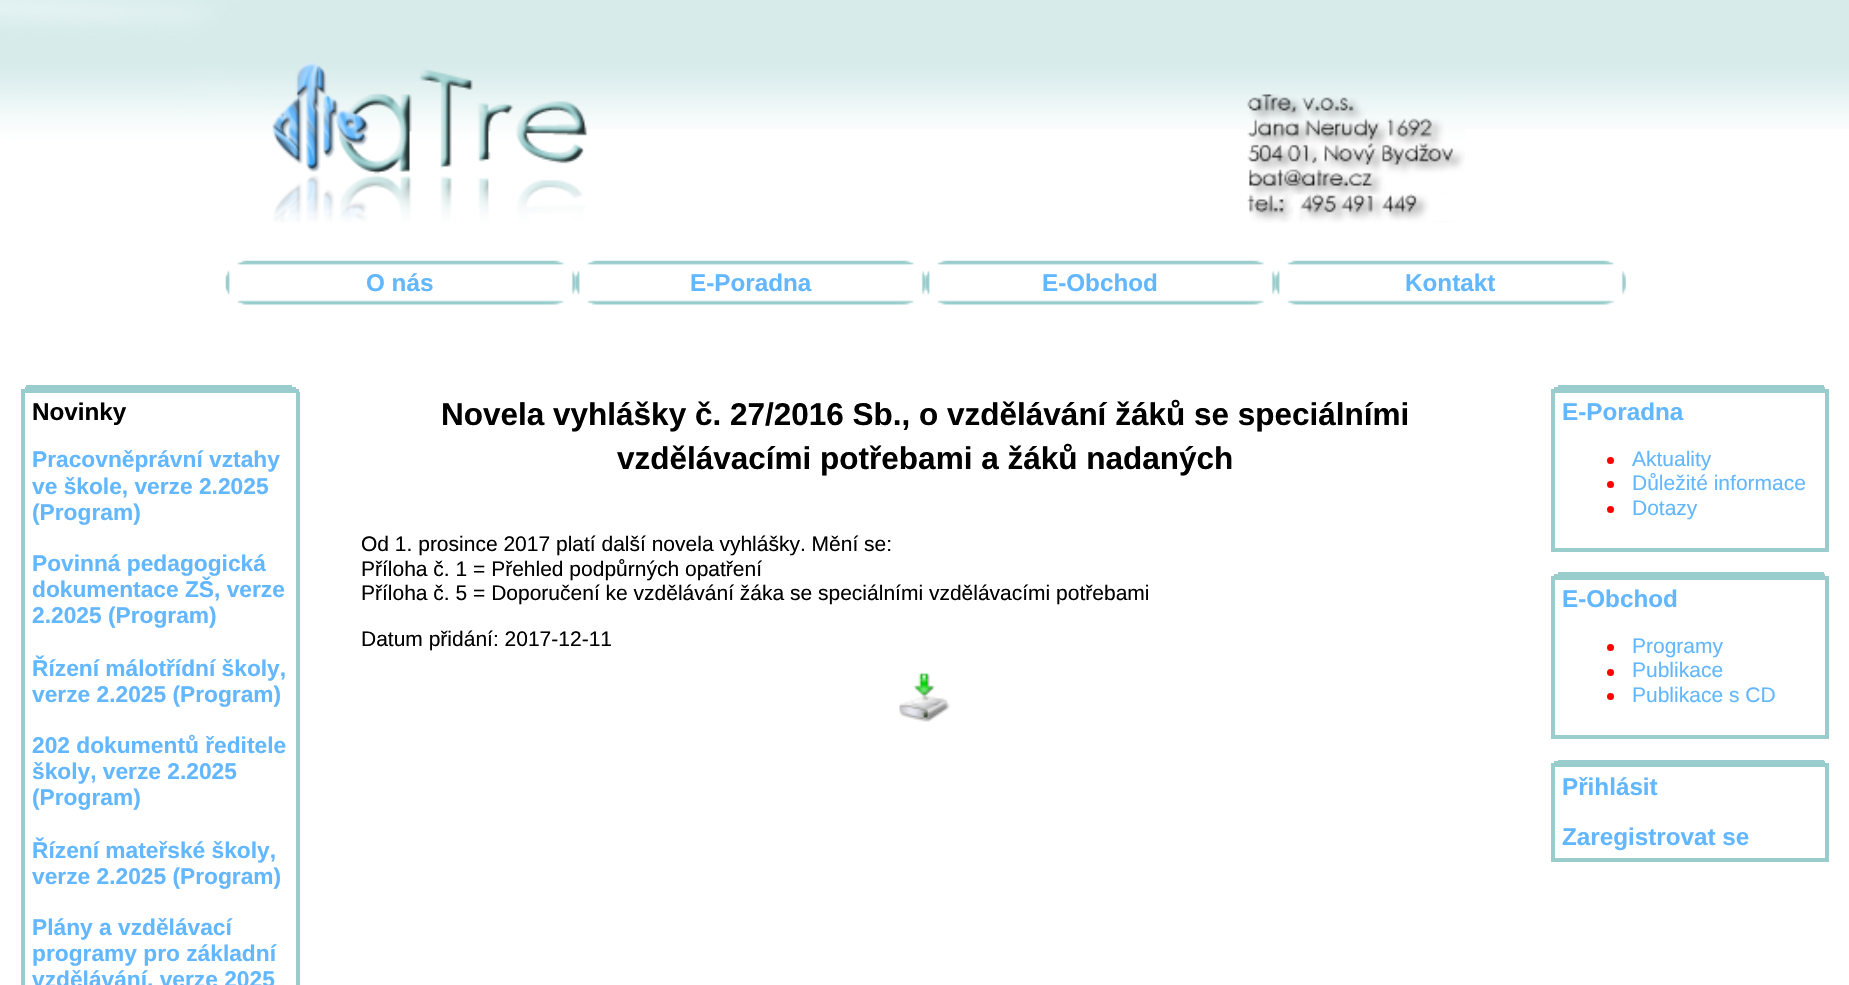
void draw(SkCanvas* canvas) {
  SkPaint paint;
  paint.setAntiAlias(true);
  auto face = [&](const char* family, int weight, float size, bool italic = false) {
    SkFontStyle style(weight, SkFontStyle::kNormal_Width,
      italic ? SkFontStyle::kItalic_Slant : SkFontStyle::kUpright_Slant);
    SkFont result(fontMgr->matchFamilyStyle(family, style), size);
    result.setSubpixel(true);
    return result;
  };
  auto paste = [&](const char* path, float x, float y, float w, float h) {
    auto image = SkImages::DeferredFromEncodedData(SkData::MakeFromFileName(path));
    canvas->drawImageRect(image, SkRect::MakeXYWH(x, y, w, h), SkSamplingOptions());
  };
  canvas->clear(0xffffffff);
  paste("img/1.png", 587, 0, 1262, 129);
  paste("img/2.png", 0, 0, 587, 223);
  paste("img/3.png", 1247, 94, 218, 129);
  paste("img/4.png", 225, 260, 351, 45);
  paste("img/5.png", 575, 260, 351, 45);
  paste("img/5.png", 925, 260, 351, 45);
  paste("img/5.png", 1275, 260, 351, 45);
  {
    const struct { float x, y, w, h; SkColor color; } items[] = {
      {26, 385, 266, 2, 0xff99cccc},
      {25, 387, 271, 2, 0xff99cccc},
      {296, 392, 4, 593, 0xff99cccc},
      {21, 392, 4, 593, 0xff99cccc},
      {21, 389, 278, 4, 0xff99cccc},
    };
    for (auto [x, y, w, h, color] : items) {
      paint.setColor(color);
      canvas->drawRect(SkRect::MakeXYWH(x, y, w, h), paint);
    }
  }
  paste("img/6.png", 899, 673, 52, 49);
  {
    const struct { float x, y, w, h; SkColor color; } items[] = {
      {1558, 385, 266, 2, 0xff99cccc},
      {1554, 387, 271, 2, 0xff99cccc},
      {1825, 392, 4, 156, 0xff99cccc},
      {1551, 392, 4, 156, 0xff99cccc},
      {1551, 389, 278, 4, 0xff99cccc},
    };
    for (auto [x, y, w, h, color] : items) {
      paint.setColor(color);
      canvas->drawRect(SkRect::MakeXYWH(x, y, w, h), paint);
    }
  }
  paint.setColor(0xffff0000);
  canvas->drawCircle(1610.5f, 460.5f, 3.5f, paint);
  canvas->drawCircle(1610.5f, 484.5f, 3.5f, paint);
  canvas->drawCircle(1610.5f, 509.5f, 3.5f, paint);
  {
    const struct { float x, y, w, h; SkColor color; } items[] = {
      {1551, 548, 278, 4, 0xff99cccc},
      {1558, 572, 266, 2, 0xff99cccc},
      {1554, 574, 271, 2, 0xff99cccc},
      {1825, 579, 4, 156, 0xff99cccc},
      {1551, 579, 4, 156, 0xff99cccc},
      {1551, 576, 278, 4, 0xff99cccc},
    };
    for (auto [x, y, w, h, color] : items) {
      paint.setColor(color);
      canvas->drawRect(SkRect::MakeXYWH(x, y, w, h), paint);
    }
  }
  paint.setColor(0xffff0000);
  canvas->drawCircle(1610.5f, 647.5f, 3.5f, paint);
  canvas->drawCircle(1610.5f, 672.5f, 3.5f, paint);
  canvas->drawCircle(1610.5f, 696.5f, 3.5f, paint);
  {
    const struct { float x, y, w, h; SkColor color; } items[] = {
      {1551, 735, 278, 4, 0xff99cccc},
      {1558, 760, 266, 1, 0xff99cccc},
      {1554, 761, 271, 2, 0xff99cccc},
      {1551, 763, 278, 4, 0xff99cccc},
      {1825, 767, 4, 91, 0xff99cccc},
      {1551, 767, 4, 91, 0xff99cccc},
      {1551, 858, 278, 4, 0xff99cccc},
    };
    for (auto [x, y, w, h, color] : items) {
      paint.setColor(color);
      canvas->drawRect(SkRect::MakeXYWH(x, y, w, h), paint);
    }
  }
  auto f0 = face("Liberation Sans", 700, 24.25f);
  paint.setColor(0xff62b7fe);
  {
    const struct { const char* s; float x, y; } items[] = {
      {"O nás", 366, 291},
      {"E-Poradna", 690, 291},
      {"E-Obchod", 1042, 291},
      {"Kontakt", 1405, 291},
    };
    for (auto [s, x, y] : items) {
      canvas->drawString(s, x, y, f0, paint);
    }
  }
  paint.setColor(0xff000000);
  canvas->drawString("Novinky", 32, 420, f0, paint);
  auto f1 = face("Liberation Sans", 700, 22.75f);
  paint.setColor(0xff62b7fe);
  {
    const struct { const char* s; float x, y; } items[] = {
      {"Pracovněprávní vztahy", 32, 467},
      {"ve škole, verze 2.2025", 32, 494},
      {"(Program)", 32, 520},
      {"Povinná pedagogická", 32, 571},
      {"dokumentace ZŠ, verze", 32, 597},
      {"2.2025 (Program)", 32, 623},
      {"Řízení málotřídní školy,", 32, 676},
      {"verze 2.2025 (Program)", 32, 702},
      {"202 dokumentů ředitele", 32, 753},
      {"školy, verze 2.2025", 32, 779},
      {"(Program)", 32, 805},
      {"Řízení mateřské školy,", 32, 858},
      {"verze 2.2025 (Program)", 32, 884},
      {"Plány a vzdělávací", 32, 935},
      {"programy pro základní", 32, 961},
      {"vzdělávání, verze 2025", 32, 987},
    };
    for (auto [s, x, y] : items) {
      canvas->drawString(s, x, y, f1, paint);
    }
  }
  auto f2 = face("Liberation Sans", 700, 31.5f);
  paint.setColor(0xff000000);
  canvas->drawString("Novela vyhlášky č. 27/2016 Sb., o vzdělávání žáků se speciálními", 441, 425, f2, paint);
  canvas->drawString("vzdělávacími potřebami a žáků nadaných", 617, 469, f2, paint);
  auto f3 = face("Liberation Sans", 400, 21);
  {
    const struct { const char* s; float x, y; } items[] = {
      {"Od 1. prosince 2017 platí další novela vyhlášky. Mění se:", 361, 551},
      {"Příloha č. 1 = Přehled podpůrných opatření", 361, 576},
      {"Příloha č. 5 = Doporučení ke vzdělávání žáka se speciálními vzdělávacími potřebami", 361, 600},
      {"Datum přidání: 2017-12-11", 361, 646},
    };
    for (auto [s, x, y] : items) {
      canvas->drawString(s, x, y, f3, paint);
    }
  }
  paint.setColor(0xff62b7fe);
  canvas->drawString("E-Poradna", 1562, 420, f0, paint);
  {
    const struct { const char* s; float x, y; } items[] = {
      {"Aktuality", 1632, 466},
      {"Důležité informace", 1632, 490},
      {"Dotazy", 1632, 515},
    };
    for (auto [s, x, y] : items) {
      canvas->drawString(s, x, y, f3, paint);
    }
  }
  canvas->drawString("E-Obchod", 1562, 607, f0, paint);
  {
    const struct { const char* s; float x, y; } items[] = {
      {"Programy", 1632, 653},
      {"Publikace", 1632, 677},
      {"Publikace s CD", 1632, 702},
    };
    for (auto [s, x, y] : items) {
      canvas->drawString(s, x, y, f3, paint);
    }
  }
  canvas->drawString("Přihlásit", 1562, 795, f0, paint);
  canvas->drawString("Zaregistrovat se", 1562, 845, f0, paint);
}
